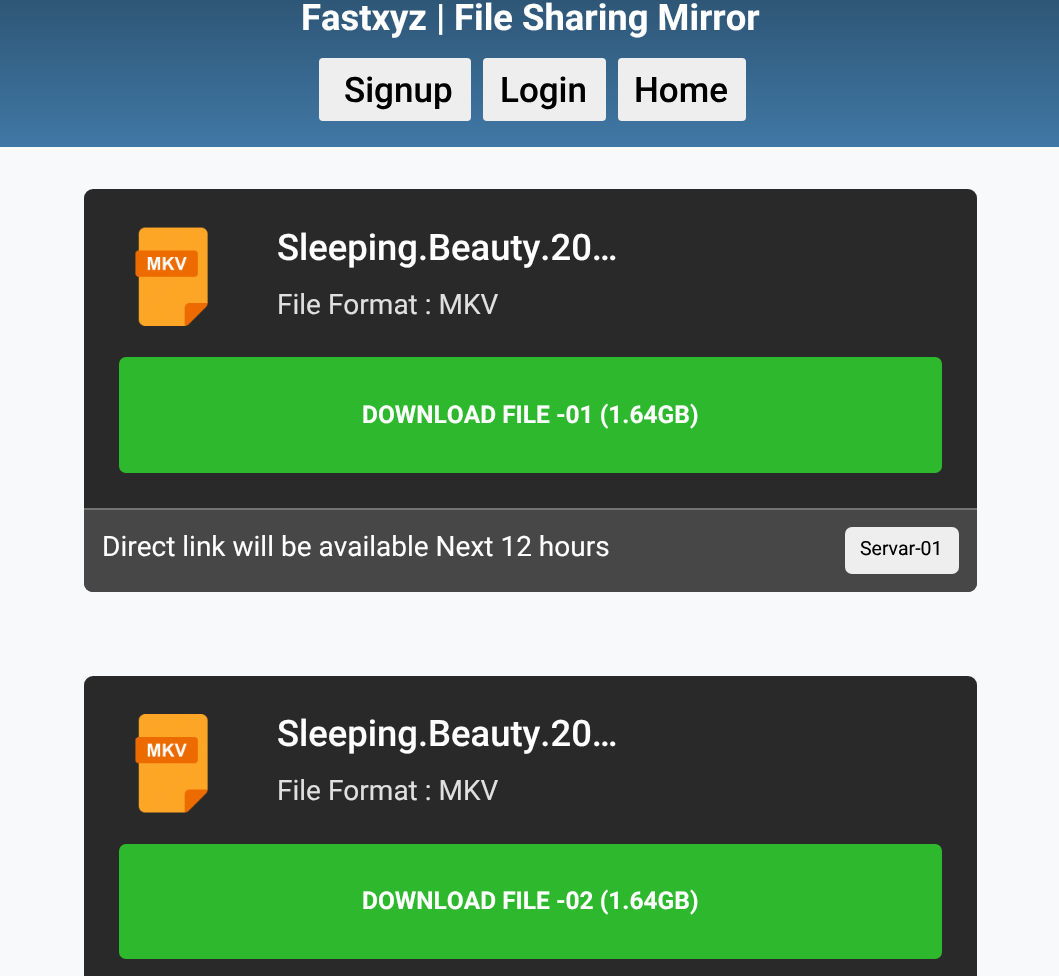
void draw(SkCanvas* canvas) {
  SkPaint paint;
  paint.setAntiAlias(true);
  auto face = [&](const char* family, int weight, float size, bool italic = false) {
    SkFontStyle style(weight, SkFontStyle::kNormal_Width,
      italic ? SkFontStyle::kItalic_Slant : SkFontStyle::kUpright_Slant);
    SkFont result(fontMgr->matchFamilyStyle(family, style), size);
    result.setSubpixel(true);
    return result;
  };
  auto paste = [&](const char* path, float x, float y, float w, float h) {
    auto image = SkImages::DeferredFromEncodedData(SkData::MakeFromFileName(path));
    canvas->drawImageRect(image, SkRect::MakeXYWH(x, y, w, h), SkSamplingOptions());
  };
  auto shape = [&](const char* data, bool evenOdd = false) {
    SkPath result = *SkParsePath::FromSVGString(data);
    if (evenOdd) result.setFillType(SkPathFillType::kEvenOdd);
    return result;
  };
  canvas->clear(0xfff8f9fa);
  {
    const SkColor colors[] = {0xff2b506e, 0xff4078a5};
    const float stops[] = {0, 1};
    const SkPoint ends[] = {{530, -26}, {530, 147}};
    paint.setShader(SkGradientShader::MakeLinear(ends, colors, stops, 2, SkTileMode::kClamp));
    paint.setAlpha(255);
  }
  canvas->drawRect(SkRect::MakeXYWH(0, 0, 1059, 147), paint);
  paint.setShader(nullptr);
  paint.setColor(0xffeeeeee);
  canvas->drawRoundRect(SkRect::MakeXYWH(319, 58, 152, 63), 4, 4, paint);
  canvas->drawRoundRect(SkRect::MakeXYWH(483, 58, 123, 63), 4, 4, paint);
  canvas->drawRoundRect(SkRect::MakeXYWH(618, 58, 128, 63), 4, 4, paint);
  paint.setColor(0xff292929);
  canvas->drawRoundRect(SkRect::MakeXYWH(84, 189, 893, 403), 9, 9, paint);
  paste("img/1.png", 135, 227, 73, 99);
  paint.setColor(0xff2eb82e);
  canvas->drawRoundRect(SkRect::MakeXYWH(119, 357, 823, 116), 7, 7, paint);
  paint.setColor(0xff474747);
  canvas->drawPath(shape("M84 508H977V583C977 588 973 592 968 592H93C88 592 84 588 84 583Z"), paint);
  paint.setColor(0xff737373);
  canvas->drawRect(SkRect::MakeXYWH(84, 508, 893, 2), paint);
  paint.setColor(0xffeeeeee);
  canvas->drawRoundRect(SkRect::MakeXYWH(845, 527, 114, 47), 7, 7, paint);
  paint.setColor(0xff292929);
  canvas->drawRoundRect(SkRect::MakeXYWH(84, 676, 893, 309), 9, 9, paint);
  paste("img/2.png", 135, 714, 73, 99);
  paint.setColor(0xff2eb82e);
  canvas->drawRoundRect(SkRect::MakeXYWH(119, 844, 823, 115), 7, 7, paint);
  auto f0 = face("Roboto", 700, 36.4f);
  paint.setColor(0xffffffff);
  canvas->drawString("Fastxyz | File Sharing Mirror", 301, 30, f0, paint);
  auto f1 = face("Roboto", 500, 35);
  paint.setColor(0xff000000);
  {
    const struct { const char* s; float x, y; } items[] = {
      {"Signup", 344, 102},
      {"Login", 500, 102},
      {"Home", 634, 102},
    };
    for (auto [s, x, y] : items) {
      canvas->drawString(s, x, y, f1, paint);
    }
  }
  auto f2 = face("Roboto", 500, 36.4f);
  paint.setColor(0xffffffff);
  canvas->drawString("Sleeping.Beauty.20…", 277, 260, f2, paint);
  auto f3 = face("Roboto", 400, 28);
  paint.setColor(0xffe0e0e0);
  canvas->drawString("File Format : MKV", 277, 314, f3, paint);
  auto f4 = face("Roboto", 700, 24.5f);
  paint.setColor(0xffffffff);
  canvas->drawString("DOWNLOAD FILE -01 (1.64GB)", 362, 423, f4, paint);
  canvas->drawString("Direct link will be available Next 12 hours", 102, 556, f3, paint);
  auto f5 = face("Roboto", 400, 19.5f);
  paint.setColor(0xff000000);
  canvas->drawString("Servar-01", 860, 555, f5, paint);
  paint.setColor(0xffffffff);
  canvas->drawString("Sleeping.Beauty.20…", 277, 746, f2, paint);
  paint.setColor(0xffe0e0e0);
  canvas->drawString("File Format : MKV", 277, 800, f3, paint);
  paint.setColor(0xffffffff);
  canvas->drawString("DOWNLOAD FILE -02 (1.64GB)", 362, 909, f4, paint);
}
